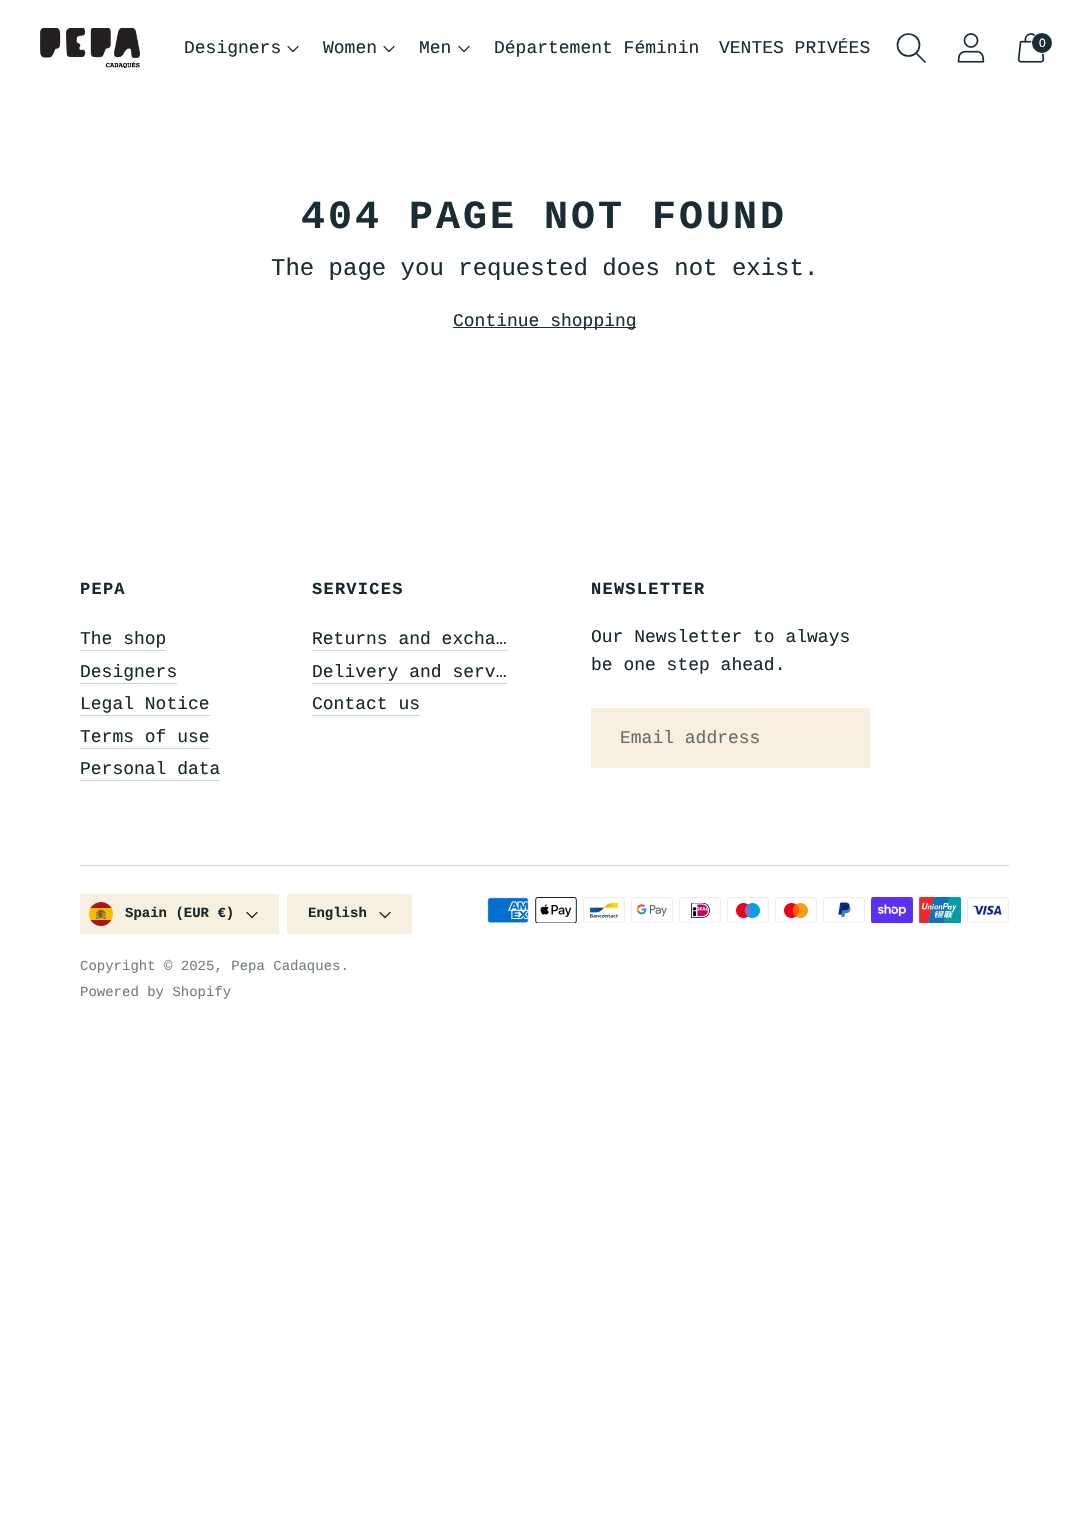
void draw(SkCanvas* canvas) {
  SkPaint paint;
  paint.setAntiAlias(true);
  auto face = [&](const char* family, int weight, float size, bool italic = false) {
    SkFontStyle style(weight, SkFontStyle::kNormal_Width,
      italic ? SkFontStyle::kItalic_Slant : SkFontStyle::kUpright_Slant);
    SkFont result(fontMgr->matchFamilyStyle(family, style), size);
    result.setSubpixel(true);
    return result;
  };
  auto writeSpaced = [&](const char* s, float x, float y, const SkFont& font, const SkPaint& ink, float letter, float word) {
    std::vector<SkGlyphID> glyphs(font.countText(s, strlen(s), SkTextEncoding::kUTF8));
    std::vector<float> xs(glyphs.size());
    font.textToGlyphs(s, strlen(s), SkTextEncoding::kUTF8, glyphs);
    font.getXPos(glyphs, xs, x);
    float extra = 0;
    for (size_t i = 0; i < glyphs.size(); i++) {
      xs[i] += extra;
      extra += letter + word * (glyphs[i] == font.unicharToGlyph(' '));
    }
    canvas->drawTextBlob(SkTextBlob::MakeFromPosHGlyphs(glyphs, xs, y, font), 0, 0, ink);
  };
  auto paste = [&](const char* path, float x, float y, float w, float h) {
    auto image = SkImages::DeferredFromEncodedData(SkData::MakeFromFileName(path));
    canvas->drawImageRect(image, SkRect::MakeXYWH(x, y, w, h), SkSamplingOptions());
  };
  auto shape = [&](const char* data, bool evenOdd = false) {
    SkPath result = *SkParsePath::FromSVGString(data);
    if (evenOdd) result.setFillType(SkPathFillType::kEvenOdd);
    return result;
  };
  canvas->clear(0xffffffff);
  paste("img/1.png", 40, 28, 100, 40);
  paint.setStroke(true);
  paint.setStrokeWidth(1.2f);
  paint.setStrokeCap(SkPaint::kRound_Cap);
  paint.setStrokeJoin(SkPaint::kRound_Join);
  paint.setColor(0xff1a2d35);
  canvas->drawPath(shape("M288 46.5L293 51.5L298 46.5"), paint);
  canvas->drawPath(shape("M384 46.5L389 51.5L394 46.5"), paint);
  canvas->drawPath(shape("M459 46.5L464 51.5L469 46.5"), paint);
  paint.setStrokeWidth(1.7f);
  paint.setStrokeCap(SkPaint::kButt_Cap);
  paint.setStrokeJoin(SkPaint::kMiter_Join);
  canvas->drawCircle(908.5f, 45, 11, paint);
  paint.setStrokeCap(SkPaint::kRound_Cap);
  paint.setStrokeJoin(SkPaint::kRound_Join);
  canvas->drawPath(shape("M916.5 53.5L925 62"), paint);
  paste("img/2.png", 957, 33, 28, 30);
  paste("img/3.png", 1017, 33, 28, 30);
  paint.setStrokeWidth(1);
  paint.setStrokeCap(SkPaint::kButt_Cap);
  paint.setStrokeJoin(SkPaint::kMiter_Join);
  paint.setColor(0xffffffff);
  canvas->drawCircle(1042, 43, 10.5f, paint);
  paint.setStroke(false);
  paint.setColor(0xff1a2d35);
  canvas->drawCircle(1042, 43, 10, paint);
  {
    const struct { float x, y, w, h; SkColor color; } items[] = {
      {453, 327, 183, 1, 0xff1a2d35},
      {80, 650, 86, 1, 0xffd1d4d5},
      {80, 683, 97, 1, 0xffd1d4d5},
      {80, 715, 130, 1, 0xffd1d4d5},
      {80, 748, 130, 1, 0xffd1d4d5},
      {80, 780, 140, 1, 0xffd1d4d5},
      {312, 650, 195, 1, 0xffd1d4d5},
      {312, 683, 195, 1, 0xffd1d4d5},
      {312, 715, 108, 1, 0xffd1d4d5},
      {591, 708, 279, 60, 0xfff7f0e0},
      {80, 865, 929, 1, 0xffd1d4d5},
      {80, 894, 199, 40, 0xfff7f0e0},
    };
    for (auto [x, y, w, h, color] : items) {
      paint.setColor(color);
      canvas->drawRect(SkRect::MakeXYWH(x, y, w, h), paint);
    }
  }
  paste("img/4.png", 89, 902, 24, 24);
  paint.setStroke(true);
  paint.setStrokeWidth(1.2f);
  paint.setStrokeCap(SkPaint::kRound_Cap);
  paint.setStrokeJoin(SkPaint::kRound_Join);
  paint.setColor(0xff17282e);
  canvas->drawPath(shape("M247 912.5L252 917.5L257 912.5"), paint);
  paint.setStroke(false);
  paint.setColor(0xfff7f0e0);
  canvas->drawRect(SkRect::MakeXYWH(287, 894, 125, 40), paint);
  paint.setStroke(true);
  paint.setColor(0xff17282e);
  canvas->drawPath(shape("M380 912.5L385 917.5L390 912.5"), paint);
  paste("img/5.png", 487, 897, 42, 26);
  paste("img/6.png", 535, 897, 42, 26);
  paste("img/7.png", 583, 897, 42, 26);
  paste("img/8.png", 631, 897, 42, 26);
  paste("img/9.png", 679, 897, 42, 26);
  paste("img/10.png", 727, 897, 42, 26);
  paste("img/11.png", 775, 897, 42, 26);
  paste("img/12.png", 823, 897, 42, 26);
  paste("img/13.png", 871, 897, 42, 26);
  paste("img/14.png", 919, 897, 42, 26);
  paste("img/15.png", 967, 897, 42, 26);
  auto f0 = face("Liberation Mono", 400, 18);
  paint.setStroke(false);
  paint.setColor(0xff1a2d35);
  {
    const struct { const char* s; float x, y; } items[] = {
      {"Designers", 184, 53},
      {"Women", 323, 53},
      {"Men", 419, 53},
      {"Département Féminin", 494, 53},
      {"VENTES PRIVÉES", 719, 53},
    };
    for (auto [s, x, y] : items) {
      canvas->drawString(s, x, y, f0, paint);
    }
  }
  auto f1 = face("Liberation Sans", 400, 12);
  paint.setColor(0xffffffff);
  canvas->drawString("0", 1039, 47, f1, paint);
  auto f2 = face("Liberation Mono", 700, 40);
  paint.setColor(0xff1a2d35);
  writeSpaced("404 PAGE NOT FOUND", 301, 228, f2, paint, 3, 0);
  auto f3 = face("Liberation Mono", 400, 24);
  canvas->drawString("The page you requested does not exist.", 271, 275, f3, paint);
  canvas->drawString("Continue shopping", 453, 326, f0, paint);
  auto f4 = face("Liberation Mono", 700, 17);
  paint.setColor(0xff17282e);
  writeSpaced("PEPA", 80, 594, f4, paint, 1.25f, 0);
  {
    const struct { const char* s; float x, y; } items[] = {
      {"The shop", 80, 644},
      {"Designers", 80, 677},
      {"Legal Notice", 80, 709},
      {"Terms of use", 80, 742},
      {"Personal data", 80, 774},
    };
    for (auto [s, x, y] : items) {
      canvas->drawString(s, x, y, f0, paint);
    }
  }
  writeSpaced("SERVICES", 312, 594, f4, paint, 1.25f, 0);
  {
    const struct { const char* s; float x, y; } items[] = {
      {"Returns and excha…", 312, 644},
      {"Delivery and serv…", 312, 677},
      {"Contact us", 312, 709},
    };
    for (auto [s, x, y] : items) {
      canvas->drawString(s, x, y, f0, paint);
    }
  }
  writeSpaced("NEWSLETTER", 591, 594, f4, paint, 1.25f, 0);
  canvas->drawString("Our Newsletter to always", 591, 642, f0, paint);
  canvas->drawString("be one step ahead.", 591, 670, f0, paint);
  paint.setColor(0xff656e6c);
  canvas->drawString("Email address", 620, 743, f0, paint);
  auto f5 = face("Liberation Mono", 700, 14);
  paint.setColor(0xff17282e);
  canvas->drawString("Spain (EUR €)", 125, 917, f5, paint);
  canvas->drawString("English", 308, 917, f5, paint);
  auto f6 = face("Liberation Mono", 400, 14);
  paint.setColor(0xff747e82);
  canvas->drawString("Copyright © 2025, Pepa Cadaques.", 80, 970, f6, paint);
  canvas->drawString("Powered by Shopify", 80, 996, f6, paint);
}
